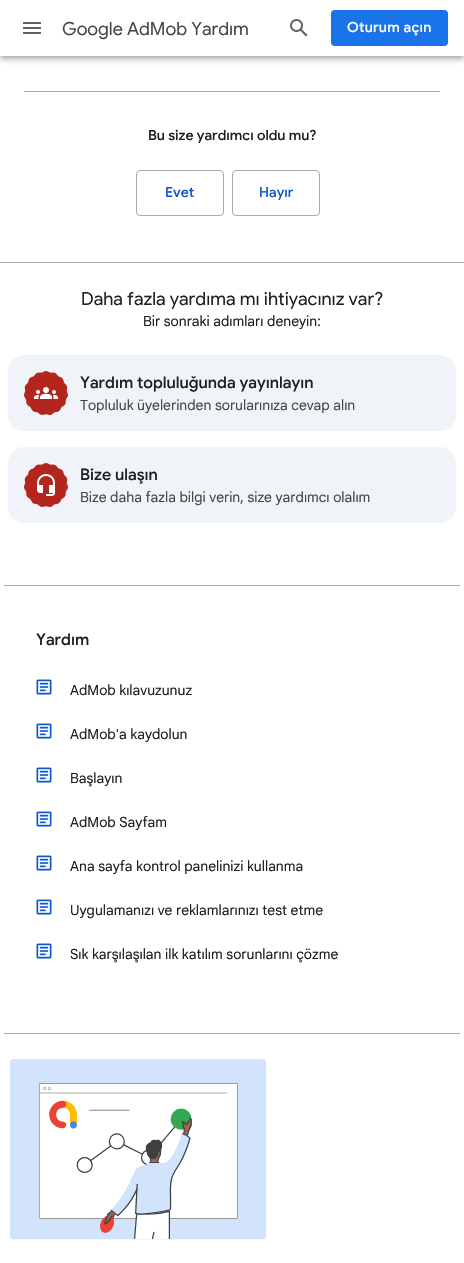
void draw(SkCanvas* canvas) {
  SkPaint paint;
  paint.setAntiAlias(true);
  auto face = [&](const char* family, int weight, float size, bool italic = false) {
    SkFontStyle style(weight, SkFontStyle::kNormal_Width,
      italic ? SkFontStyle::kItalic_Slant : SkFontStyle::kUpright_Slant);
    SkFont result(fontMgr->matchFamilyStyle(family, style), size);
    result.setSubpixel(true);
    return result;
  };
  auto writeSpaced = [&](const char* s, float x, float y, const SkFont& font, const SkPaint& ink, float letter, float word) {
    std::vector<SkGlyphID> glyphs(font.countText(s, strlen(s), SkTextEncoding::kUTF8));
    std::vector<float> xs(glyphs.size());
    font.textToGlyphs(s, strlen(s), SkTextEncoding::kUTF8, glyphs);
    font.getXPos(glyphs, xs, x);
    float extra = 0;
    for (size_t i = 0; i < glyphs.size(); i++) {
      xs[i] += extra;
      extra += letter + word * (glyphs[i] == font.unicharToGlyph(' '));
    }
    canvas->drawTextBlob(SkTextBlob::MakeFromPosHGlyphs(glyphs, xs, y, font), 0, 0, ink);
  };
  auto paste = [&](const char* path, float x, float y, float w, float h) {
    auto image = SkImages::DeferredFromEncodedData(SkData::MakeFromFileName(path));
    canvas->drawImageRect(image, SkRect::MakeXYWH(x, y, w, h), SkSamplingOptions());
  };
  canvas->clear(0xffffffff);
  paint.setColor(0x33000000);
  paint.setMaskFilter(SkMaskFilter::MakeBlur(kNormal_SkBlurStyle, 2));
  canvas->drawRect(SkRect::MakeXYWH(1, 3, 462, 54), paint);
  paint.setMaskFilter(nullptr);
  paint.setColor(0x1f000000);
  paint.setMaskFilter(SkMaskFilter::MakeBlur(kNormal_SkBlurStyle, 5));
  canvas->drawRect(SkRect::MakeXYWH(0, 1, 464, 56), paint);
  paint.setMaskFilter(nullptr);
  paint.setColor(0x24000000);
  paint.setMaskFilter(SkMaskFilter::MakeBlur(kNormal_SkBlurStyle, 2.5f));
  canvas->drawRect(SkRect::MakeXYWH(0, 4, 464, 56), paint);
  paint.setMaskFilter(nullptr);
  paint.setColor(0xffffffff);
  canvas->drawRect(SkRect::MakeXYWH(0, 0, 464, 56), paint);
  paste("img/1.png", 23, 22, 18, 12);
  paste("img/2.png", 290, 19, 18, 18);
  paint.setColor(0xff1a73e8);
  canvas->drawRoundRect(SkRect::MakeXYWH(331, 10, 117, 36), 4, 4, paint);
  paint.setColor(0xffa9acaa);
  canvas->drawRect(SkRect::MakeXYWH(24, 91, 416, 1), paint);
  paint.setStroke(true);
  paint.setStrokeWidth(1);
  canvas->drawRoundRect(SkRect::MakeXYWH(136.5f, 170.5f, 87, 45), 3.5f, 3.5f, paint);
  canvas->drawRoundRect(SkRect::MakeXYWH(232.5f, 170.5f, 87, 45), 3.5f, 3.5f, paint);
  paint.setStroke(false);
  canvas->drawRect(SkRect::MakeXYWH(0, 262, 464, 1), paint);
  paint.setColor(0xfff0f4f9);
  canvas->drawRoundRect(SkRect::MakeXYWH(8, 355, 448, 76), 16, 16, paint);
  paste("img/3.png", 24, 371, 44, 44);
  paste("img/4.png", 34, 387, 24, 12);
  canvas->drawRoundRect(SkRect::MakeXYWH(8, 447, 448, 76), 16, 16, paint);
  paste("img/3.png", 24, 463, 44, 44);
  paste("img/5.png", 37, 474, 18, 22);
  paint.setColor(0xffa9acaa);
  canvas->drawRect(SkRect::MakeXYWH(4, 585, 456, 1), paint);
  canvas->drawRect(SkRect::MakeXYWH(4, 1033, 456, 1), paint);
  paste("img/6.png", 36, 679, 16, 16);
  paste("img/6.png", 36, 723, 16, 16);
  paste("img/6.png", 36, 767, 16, 16);
  paste("img/6.png", 36, 811, 16, 16);
  paste("img/6.png", 36, 855, 16, 16);
  paste("img/6.png", 36, 899, 16, 16);
  paste("img/6.png", 36, 943, 16, 16);
  paste("img/7.png", 10, 1059, 256, 181);
  auto f0 = face("Google Sans", 400, 18);
  paint.setColor(0xff444746);
  canvas->drawString("Google AdMob Yardım", 62, 35, f0, paint);
  auto f1 = face("Google Sans", 500, 14);
  paint.setColor(0xffffffff);
  writeSpaced("Oturum açın", 347, 32, f1, paint, 0.25f, 0);
  paint.setColor(0xff1f1f1f);
  canvas->drawString("Bu size yardımcı oldu mu?", 148, 140, f1, paint);
  paint.setColor(0xff0b57d0);
  canvas->drawString("Evet", 165, 197, f1, paint);
  canvas->drawString("Hayır", 259, 197, f1, paint);
  paint.setColor(0xff1f1f1f);
  canvas->drawString("Daha fazla yardıma mı ihtiyacınız var?", 81, 305, f0, paint);
  auto f2 = face("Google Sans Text", 400, 14);
  canvas->drawString("Bir sonraki adımları deneyin:", 143, 326, f2, paint);
  auto f3 = face("Google Sans", 500, 16);
  canvas->drawString("Yardım topluluğunda yayınlayın", 80, 388, f3, paint);
  paint.setColor(0xff444746);
  canvas->drawString("Topluluk üyelerinden sorularınıza cevap alın", 80, 410, f2, paint);
  paint.setColor(0xff1f1f1f);
  canvas->drawString("Bize ulaşın", 80, 480, f3, paint);
  paint.setColor(0xff444746);
  canvas->drawString("Bize daha fazla bilgi verin, size yardımcı olalım", 80, 502, f2, paint);
  paint.setColor(0xff1f1f1f);
  canvas->drawString("Yardım", 36, 645, f3, paint);
  {
    const struct { const char* s; float x, y; } items[] = {
      {"AdMob kılavuzunuz", 70, 695},
      {"AdMob'a kaydolun", 70, 739},
      {"Başlayın", 70, 783},
      {"AdMob Sayfam", 70, 827},
      {"Ana sayfa kontrol panelinizi kullanma", 70, 871},
      {"Uygulamanızı ve reklamlarınızı test etme", 70, 915},
      {"Sık karşılaşılan ilk katılım sorunlarını çözme", 70, 959},
    };
    for (auto [s, x, y] : items) {
      canvas->drawString(s, x, y, f2, paint);
    }
  }
}
